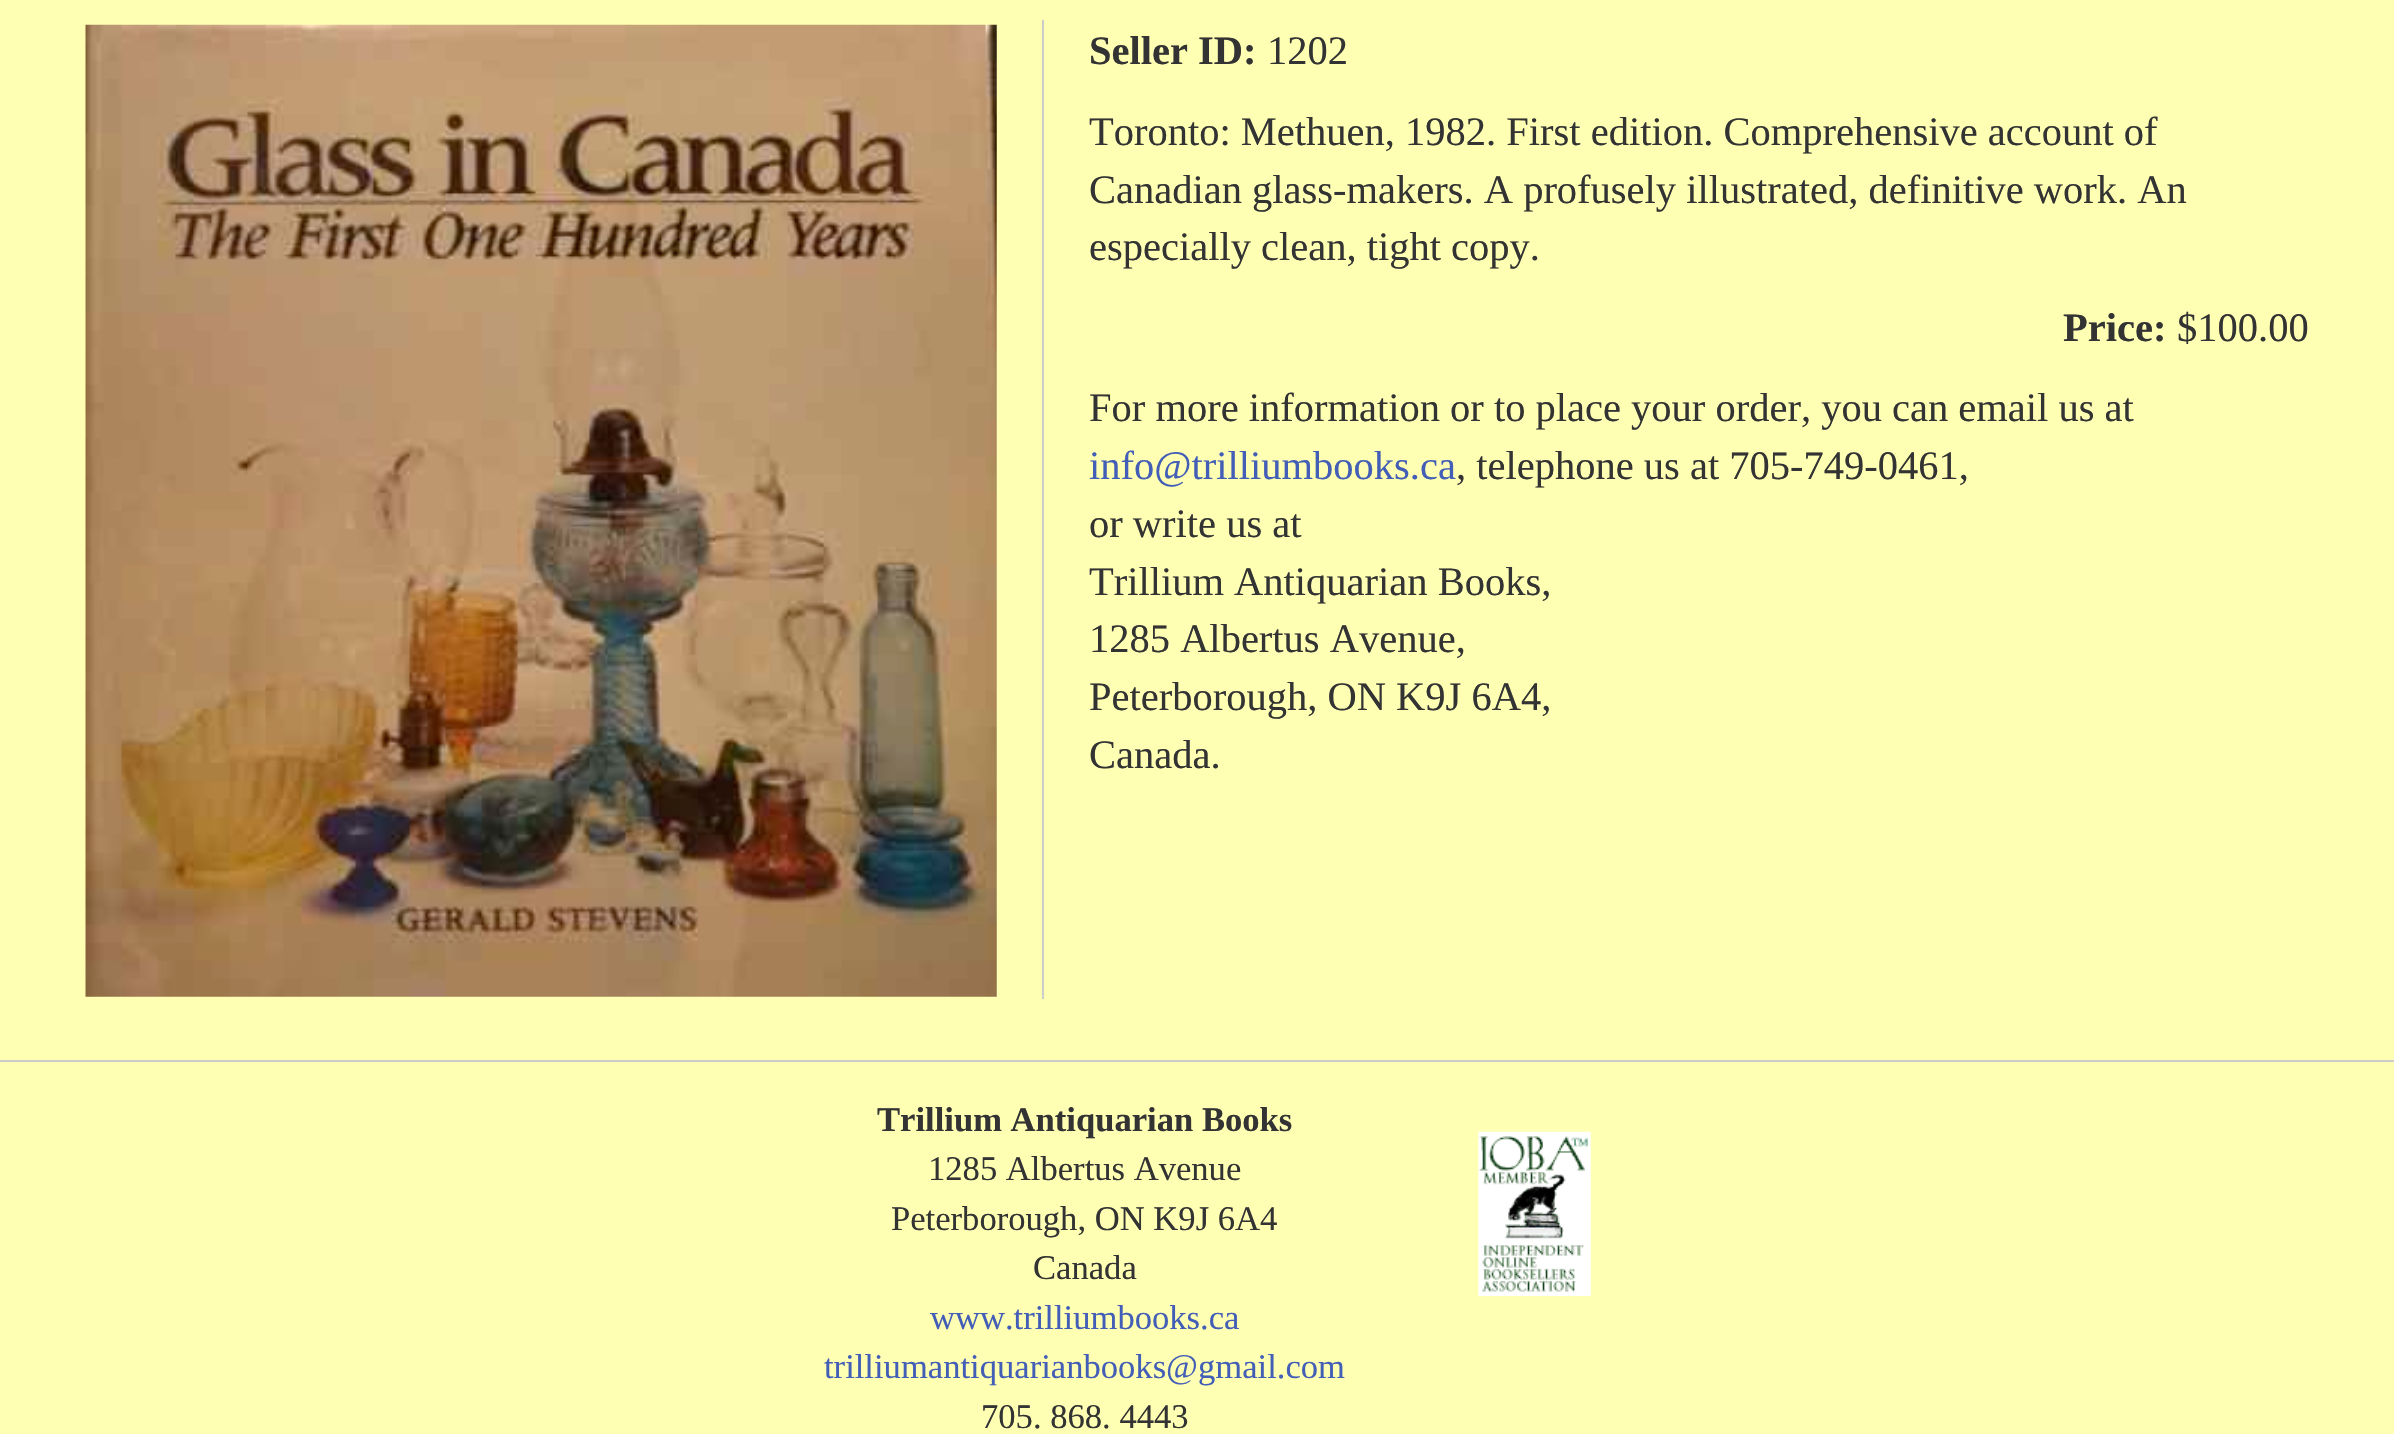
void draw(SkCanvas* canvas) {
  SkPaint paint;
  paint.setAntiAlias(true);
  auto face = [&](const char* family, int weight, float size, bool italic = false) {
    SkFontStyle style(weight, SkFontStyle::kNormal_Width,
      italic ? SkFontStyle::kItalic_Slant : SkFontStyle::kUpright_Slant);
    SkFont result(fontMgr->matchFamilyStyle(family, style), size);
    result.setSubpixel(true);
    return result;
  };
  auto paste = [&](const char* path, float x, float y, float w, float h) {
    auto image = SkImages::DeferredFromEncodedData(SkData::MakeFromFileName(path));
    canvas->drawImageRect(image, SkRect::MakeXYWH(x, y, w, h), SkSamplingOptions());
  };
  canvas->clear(0xfffeffb3);
  paint.setColor(0xffcccccc);
  canvas->drawRect(SkRect::MakeXYWH(0, 1060, 2394, 2), paint);
  canvas->drawRect(SkRect::MakeXYWH(1042, 20, 2, 979), paint);
  paste("img/1.png", 85, 24, 912, 973);
  paste("img/2.png", 1478, 1131, 113, 165);
  auto f0 = face("Liberation Serif", 700, 40.5f);
  paint.setColor(0xff333333);
  canvas->drawString("Seller ID:", 1089, 64, f0, paint);
  auto f1 = face("Liberation Serif", 400, 40.5f);
  {
    const struct { const char* s; float x, y; } items[] = {
      {"1202", 1267, 64},
      {"Toronto: Methuen, 1982. First edition. Comprehensive account of", 1089, 145},
      {"Canadian glass-makers. A profusely illustrated, definitive work. An", 1089, 203},
      {"especially clean, tight copy.", 1089, 260},
    };
    for (auto [s, x, y] : items) {
      canvas->drawString(s, x, y, f1, paint);
    }
  }
  canvas->drawString("Price:", 2063, 341, f0, paint);
  canvas->drawString("$100.00", 2177, 341, f1, paint);
  canvas->drawString("For more information or to place your order, you can email us at", 1089, 421, f1, paint);
  paint.setColor(0xff435eb6);
  canvas->drawString("info@trilliumbooks.ca", 1089, 479, f1, paint);
  paint.setColor(0xff333333);
  {
    const struct { const char* s; float x, y; } items[] = {
      {", telephone us at 705-749-0461,", 1456, 479},
      {"or write us at", 1089, 537},
      {"Trillium Antiquarian Books,", 1089, 595},
      {"1285 Albertus Avenue,", 1089, 652},
      {"Peterborough, ON K9J 6A4,", 1089, 710},
      {"Canada.", 1089, 768},
    };
    for (auto [s, x, y] : items) {
      canvas->drawString(s, x, y, f1, paint);
    }
  }
  auto f2 = face("Liberation Serif", 700, 34.6f);
  canvas->drawString("Trillium Antiquarian Books", 877, 1131, f2, paint);
  auto f3 = face("Liberation Serif", 400, 34.6f);
  {
    const struct { const char* s; float x, y; } items[] = {
      {"1285 Albertus Avenue", 928, 1180},
      {"Peterborough, ON K9J 6A4", 891, 1230},
      {"Canada", 1033, 1279},
    };
    for (auto [s, x, y] : items) {
      canvas->drawString(s, x, y, f3, paint);
    }
  }
  paint.setColor(0xff435eb6);
  canvas->drawString("www.trilliumbooks.ca", 930, 1329, f3, paint);
  canvas->drawString("trilliumantiquarianbooks@gmail.com", 824, 1378, f3, paint);
  paint.setColor(0xff333333);
  canvas->drawString("705. 868. 4443", 981, 1428, f3, paint);
}
